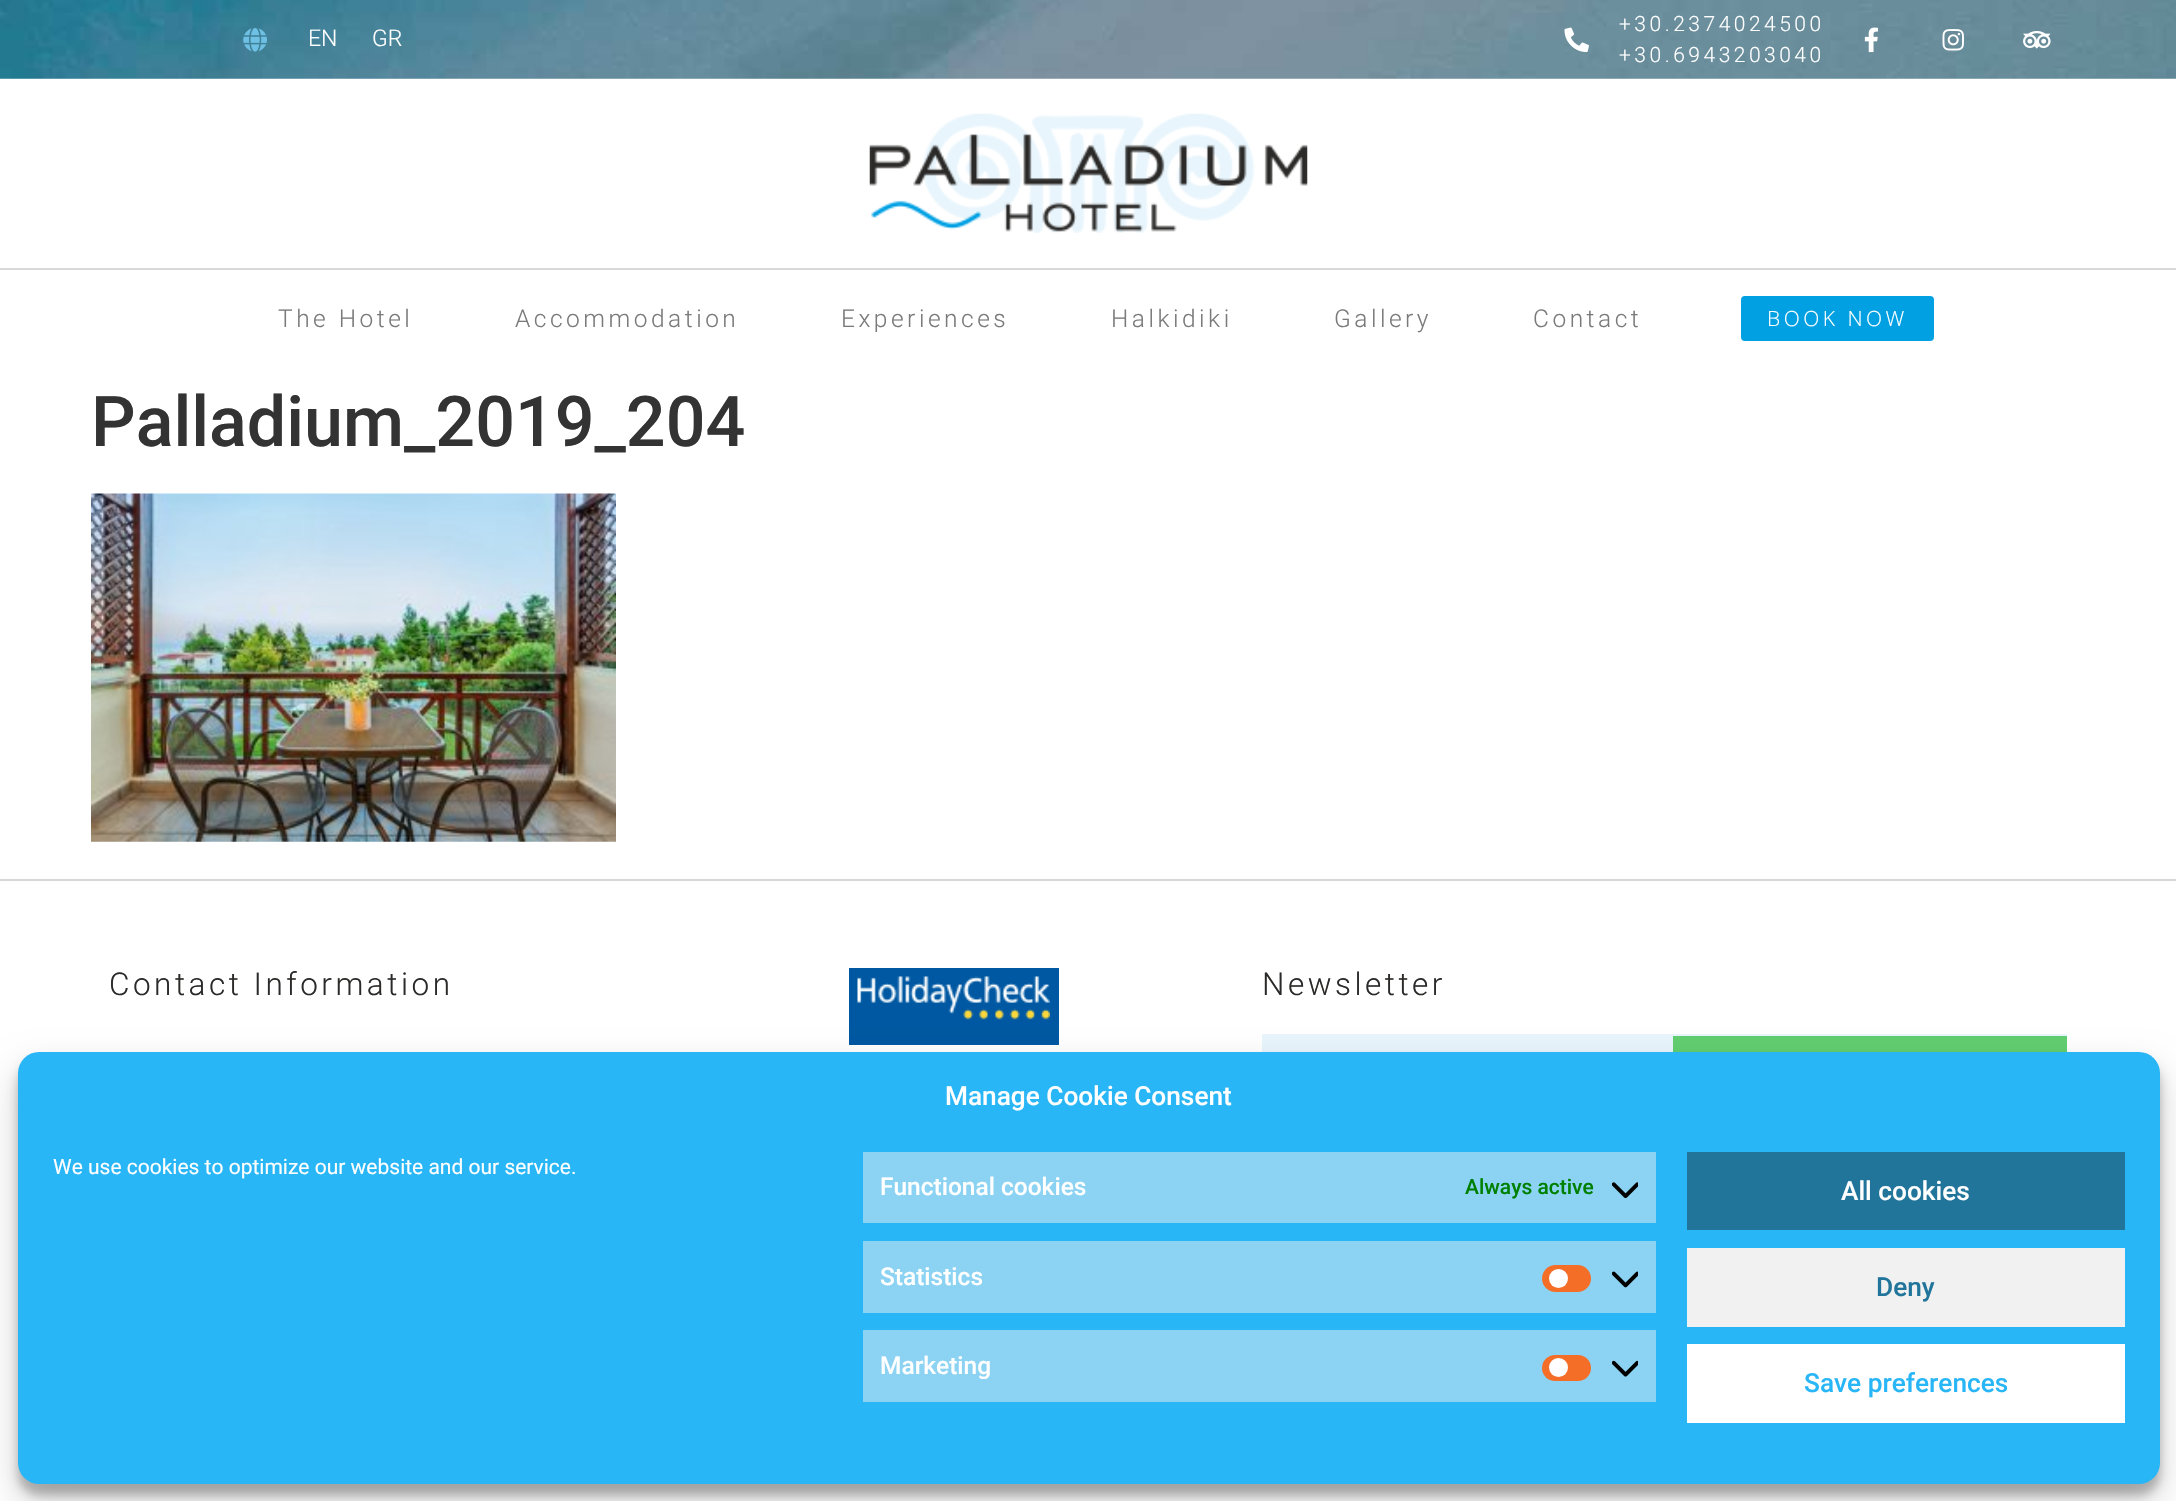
void draw(SkCanvas* canvas) {
  SkPaint paint;
  paint.setAntiAlias(true);
  auto face = [&](const char* family, int weight, float size, bool italic = false) {
    SkFontStyle style(weight, SkFontStyle::kNormal_Width,
      italic ? SkFontStyle::kItalic_Slant : SkFontStyle::kUpright_Slant);
    SkFont result(fontMgr->matchFamilyStyle(family, style), size);
    result.setSubpixel(true);
    return result;
  };
  auto writeSpaced = [&](const char* s, float x, float y, const SkFont& font, const SkPaint& ink, float letter, float word) {
    std::vector<SkGlyphID> glyphs(font.countText(s, strlen(s), SkTextEncoding::kUTF8));
    std::vector<float> xs(glyphs.size());
    font.textToGlyphs(s, strlen(s), SkTextEncoding::kUTF8, glyphs);
    font.getXPos(glyphs, xs, x);
    float extra = 0;
    for (size_t i = 0; i < glyphs.size(); i++) {
      xs[i] += extra;
      extra += letter + word * (glyphs[i] == font.unicharToGlyph(' '));
    }
    canvas->drawTextBlob(SkTextBlob::MakeFromPosHGlyphs(glyphs, xs, y, font), 0, 0, ink);
  };
  auto paste = [&](const char* path, float x, float y, float w, float h) {
    auto image = SkImages::DeferredFromEncodedData(SkData::MakeFromFileName(path));
    canvas->drawImageRect(image, SkRect::MakeXYWH(x, y, w, h), SkSamplingOptions());
  };
  canvas->clear(0xffffffff);
  paste("img/1.png", 0, 0, 2176, 79);
  paste("img/2.png", 243, 28, 24, 24);
  paste("img/3.png", 1564, 27, 25, 26);
  paste("img/4.png", 1864, 27, 14, 26);
  paste("img/5.png", 1942, 29, 22, 22);
  paste("img/6.png", 2023, 31, 28, 18);
  paste("img/7.png", 869, 113, 439, 120);
  paint.setColor(0xffd8d8d8);
  canvas->drawRect(SkRect::MakeXYWH(0, 268, 2176, 2), paint);
  paint.setColor(0xff00a0e3);
  canvas->drawRoundRect(SkRect::MakeXYWH(1741, 296, 193, 45), 4, 4, paint);
  paste("img/8.png", 91, 493, 525, 349);
  paint.setColor(0xffd8d8d8);
  canvas->drawRect(SkRect::MakeXYWH(0, 879, 2176, 2), paint);
  paint.setColor(0xff0058a2);
  canvas->drawRect(SkRect::MakeXYWH(849, 968, 210, 77), paint);
  paste("img/9.png", 857, 976, 193, 44);
  paint.setColor(0xffe8f5fc);
  canvas->drawRect(SkRect::MakeXYWH(1262, 1034, 805, 18), paint);
  paint.setColor(0xff61ce70);
  canvas->drawRect(SkRect::MakeXYWH(1673, 1036, 394, 16), paint);
  paint.setColor(0x3b000000);
  paint.setMaskFilter(SkMaskFilter::MakeBlur(kNormal_SkBlurStyle, 5));
  canvas->drawRoundRect(SkRect::MakeXYWH(18, 1062, 2142, 433), 21, 21, paint);
  paint.setMaskFilter(nullptr);
  paint.setColor(0x30000000);
  paint.setMaskFilter(SkMaskFilter::MakeBlur(kNormal_SkBlurStyle, 17.5f));
  canvas->drawRoundRect(SkRect::MakeXYWH(18, 1069, 2142, 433), 21, 21, paint);
  paint.setMaskFilter(nullptr);
  paint.setColor(0xff29b6f6);
  canvas->drawRoundRect(SkRect::MakeXYWH(18, 1052, 2142, 432), 21, 21, paint);
  paint.setColor(0xff8cd3f3);
  canvas->drawRect(SkRect::MakeXYWH(863, 1152, 793, 71), paint);
  paste("img/10.png", 1612, 1182, 26, 17);
  canvas->drawRect(SkRect::MakeXYWH(863, 1241, 793, 72), paint);
  paint.setColor(0xfff56e28);
  canvas->drawRoundRect(SkRect::MakeXYWH(1542, 1265, 49, 27), 13.5f, 13.5f, paint);
  paint.setColor(0xffffffff);
  canvas->drawCircle(1558.5f, 1278.5f, 9.5f, paint);
  paste("img/11.png", 1612, 1271, 26, 17);
  paint.setColor(0xff8cd3f3);
  canvas->drawRect(SkRect::MakeXYWH(863, 1330, 793, 72), paint);
  paint.setColor(0xfff56e28);
  canvas->drawRoundRect(SkRect::MakeXYWH(1542, 1355, 49, 26), 13, 13, paint);
  paint.setColor(0xffffffff);
  canvas->drawCircle(1558.5f, 1367.5f, 9.5f, paint);
  paste("img/12.png", 1612, 1360, 26, 17);
  {
    const struct { float x, y, w, h; SkColor color; } items[] = {
      {1687, 1152, 438, 78, 0xff21759b},
      {1687, 1248, 438, 79, 0xfff1f1f1},
      {1687, 1344, 438, 79, 0xffffffff},
    };
    for (auto [x, y, w, h, color] : items) {
      paint.setColor(color);
      canvas->drawRect(SkRect::MakeXYWH(x, y, w, h), paint);
    }
  }
  auto f0 = face("Roboto", 300, 23);
  canvas->drawString("EN", 308, 46, f0, paint);
  canvas->drawString("GR", 372, 46, f0, paint);
  auto f1 = face("Roboto", 300, 21);
  writeSpaced("+30.2374024500", 1619, 31, f1, paint, 3.5f, 0);
  writeSpaced("+30.6943203040", 1619, 62, f1, paint, 3.5f, 0);
  auto f2 = face("Roboto", 300, 24.5f);
  paint.setColor(0xff7a7a7a);
  {
    const struct { const char* s; float x, y; } items[] = {
      {"The Hotel", 278, 327},
      {"Accommodation", 515, 327},
      {"Experiences", 841, 327},
      {"Halkidiki", 1111, 327},
      {"Gallery", 1334, 327},
      {"Contact", 1533, 327},
    };
    for (auto [s, x, y] : items) {
      writeSpaced(s, x, y, f2, paint, 3.5f, 0);
    }
  }
  auto f3 = face("Open Sans", 300, 21);
  paint.setColor(0xffffffff);
  writeSpaced("BOOK NOW", 1767, 326, f3, paint, 3.5f, 0);
  auto f4 = face("Roboto", 500, 70);
  paint.setColor(0xff333333);
  canvas->drawString("Palladium_2019_204", 91, 446, f4, paint);
  auto f5 = face("Roboto", 300, 31.5f);
  paint.setColor(0xff2b2a29);
  writeSpaced("Contact Information", 109, 995, f5, paint, 3.5f, 0);
  writeSpaced("Newsletter", 1262, 995, f5, paint, 3.5f, 0);
  auto f6 = face("Roboto", 500, 26.25f);
  paint.setColor(0xffffffff);
  canvas->drawString("Manage Cookie Consent", 945, 1105, f6, paint);
  auto f7 = face("Roboto", 400, 21);
  canvas->drawString("We use cookies to optimize our website and our service.", 53, 1174, f7, paint);
  auto f8 = face("Roboto", 500, 24.5f);
  canvas->drawString("Functional cookies", 880, 1195, f8, paint);
  auto f9 = face("Roboto", 500, 21);
  paint.setColor(0xff008000);
  canvas->drawString("Always active", 1465, 1194, f9, paint);
  paint.setColor(0xffffffff);
  canvas->drawString("Statistics", 880, 1285, f8, paint);
  canvas->drawString("Marketing", 880, 1374, f8, paint);
  canvas->drawString("All cookies", 1841, 1200, f6, paint);
  paint.setColor(0xff21759b);
  canvas->drawString("Deny", 1876, 1296, f6, paint);
  paint.setColor(0xff29b6f6);
  canvas->drawString("Save preferences", 1804, 1392, f6, paint);
}
